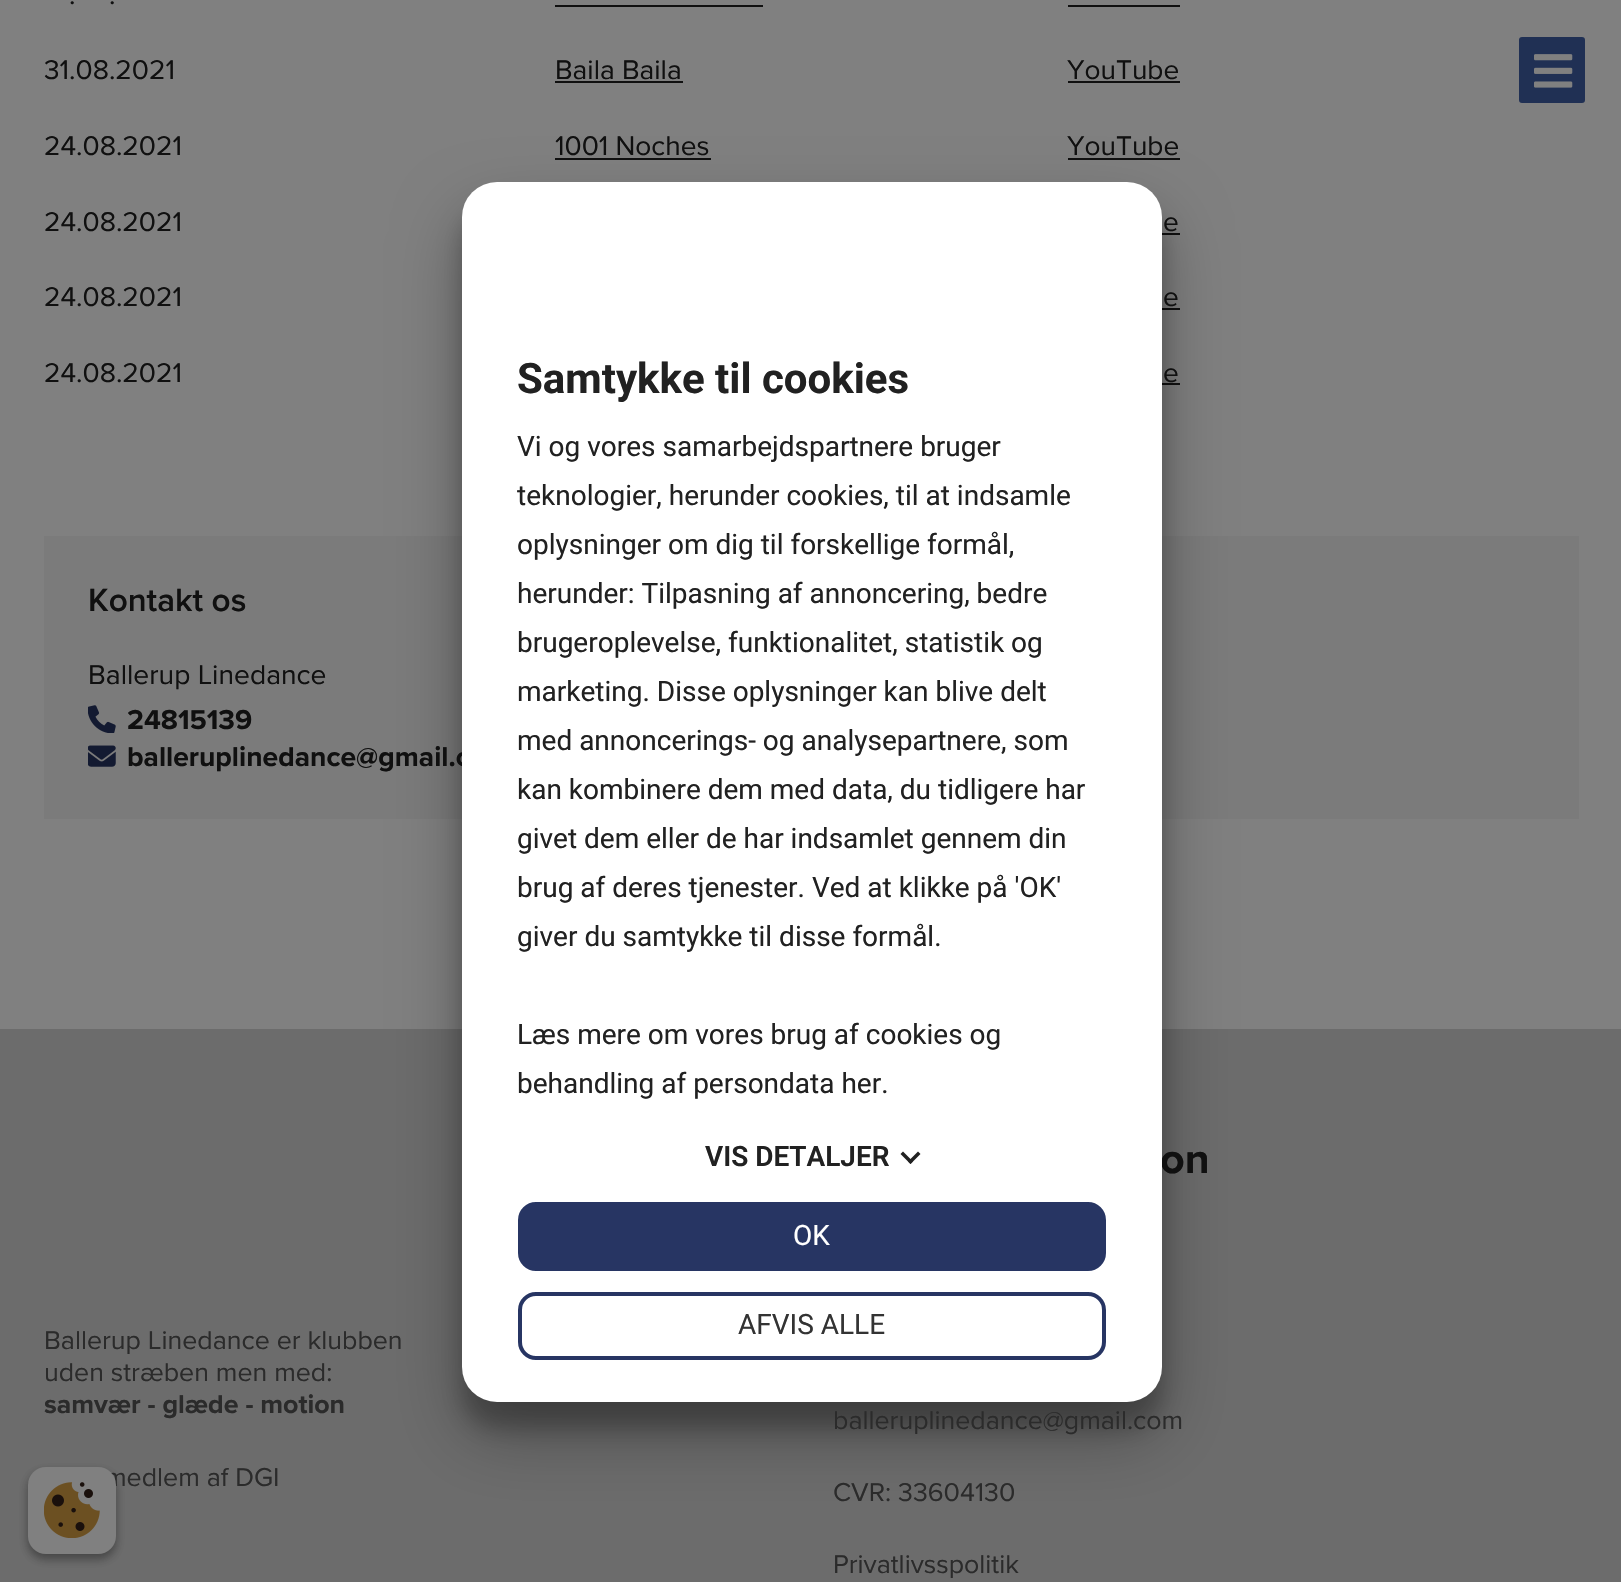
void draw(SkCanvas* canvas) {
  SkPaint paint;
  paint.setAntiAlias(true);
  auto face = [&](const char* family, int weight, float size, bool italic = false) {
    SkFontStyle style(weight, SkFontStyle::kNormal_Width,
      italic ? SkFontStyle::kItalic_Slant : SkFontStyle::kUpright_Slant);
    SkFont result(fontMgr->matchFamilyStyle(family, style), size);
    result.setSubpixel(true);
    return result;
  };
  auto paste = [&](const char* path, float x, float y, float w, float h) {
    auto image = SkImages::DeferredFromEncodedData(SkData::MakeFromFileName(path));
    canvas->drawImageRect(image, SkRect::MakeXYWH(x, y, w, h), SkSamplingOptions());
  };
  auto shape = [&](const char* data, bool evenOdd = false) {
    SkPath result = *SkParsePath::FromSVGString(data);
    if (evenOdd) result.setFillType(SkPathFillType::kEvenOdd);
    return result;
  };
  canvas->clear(0xff808080);
  {
    const struct { float x, y, w, h; SkColor color; } items[] = {
      {555, 5, 208, 2, 0xff101010},
      {1068, 5, 112, 2, 0xff101010},
      {555, 81, 128, 2, 0xff101010},
      {1068, 81, 112, 2, 0xff101010},
      {555, 158, 156, 2, 0xff101010},
      {1068, 158, 112, 2, 0xff101010},
      {1162, 233, 18, 2, 0xff101010},
      {1162, 308, 18, 2, 0xff101010},
      {1162, 383, 18, 2, 0xff101010},
      {44, 536, 1535, 283, 0xff7b7b7b},
    };
    for (auto [x, y, w, h, color] : items) {
      paint.setColor(color);
      canvas->drawRect(SkRect::MakeXYWH(x, y, w, h), paint);
    }
  }
  paste("img/1.png", 88, 705, 28, 28);
  paste("img/2.png", 88, 745, 28, 22);
  paint.setColor(0xff203054);
  canvas->drawRoundRect(SkRect::MakeXYWH(1518, 36, 68, 68), 4, 4, paint);
  paint.setStroke(true);
  paint.setStrokeWidth(2);
  paint.setColor(0xff808080);
  canvas->drawRoundRect(SkRect::MakeXYWH(1518, 36, 68, 68), 4, 4, paint);
  paste("img/3.png", 1534, 54, 39, 34);
  paint.setStroke(false);
  paint.setColor(0xff6c6c6c);
  canvas->drawRect(SkRect::MakeXYWH(0, 1029, 1621, 553), paint);
  paint.setColor(0x38000000);
  paint.setMaskFilter(SkMaskFilter::MakeBlur(kNormal_SkBlurStyle, 10.5f));
  canvas->drawRoundRect(SkRect::MakeXYWH(462, 208, 700, 1220), 35, 35, paint);
  paint.setMaskFilter(nullptr);
  paint.setColor(0x4d000000);
  paint.setMaskFilter(SkMaskFilter::MakeBlur(kNormal_SkBlurStyle, 33));
  canvas->drawRoundRect(SkRect::MakeXYWH(462, 215, 700, 1220), 35, 35, paint);
  paint.setMaskFilter(nullptr);
  paint.setColor(0x3b000000);
  paint.setMaskFilter(SkMaskFilter::MakeBlur(kNormal_SkBlurStyle, 5));
  canvas->drawRoundRect(SkRect::MakeXYWH(28, 1472, 88, 87), 18, 18, paint);
  paint.setMaskFilter(nullptr);
  paint.setColor(0x29000000);
  paint.setMaskFilter(SkMaskFilter::MakeBlur(kNormal_SkBlurStyle, 5));
  canvas->drawRoundRect(SkRect::MakeXYWH(28, 1472, 88, 87), 18, 18, paint);
  paint.setMaskFilter(nullptr);
  auto f0 = face("Proxima Nova", 400, 28);
  paint.setColor(0xff101010);
  {
    const struct { const char* s; float x, y; } items[] = {
      {".", 69, 4},
      {".", 109, 4},
      {"31.08.2021", 44, 79},
      {"Baila Baila", 555, 79},
      {"YouTube", 1067, 79},
      {"24.08.2021", 44, 155},
      {"1001 Noches", 555, 155},
      {"YouTube", 1067, 155},
      {"24.08.2021", 44, 231},
      {"e", 1163, 231},
      {"24.08.2021", 44, 306},
      {"e", 1163, 306},
      {"24.08.2021", 44, 382},
      {"e", 1163, 382},
    };
    for (auto [s, x, y] : items) {
      canvas->drawString(s, x, y, f0, paint);
    }
  }
  auto f1 = face("Proxima Nova", 600, 33.25f);
  canvas->drawString("Kontakt os", 88, 611, f1, paint);
  auto f2 = face("Proxima Nova", 400, 28.25f);
  canvas->drawString("Ballerup Linedance", 88, 684, f2, paint);
  auto f3 = face("Proxima Nova", 700, 28.25f);
  canvas->drawString("24815139", 127, 729, f3, paint);
  canvas->drawString("balleruplinedance@gmail.c", 127, 766, f3, paint);
  auto f4 = face("Proxima Nova", 400, 26.75f);
  paint.setColor(0xff2b2b2b);
  canvas->drawString("Ballerup Linedance er klubben", 44, 1349, f4, paint);
  canvas->drawString("uden stræben men med:", 44, 1381, f4, paint);
  auto f5 = face("Proxima Nova", 700, 26.75f);
  canvas->drawString("samvær - glæde - motion", 44, 1413, f5, paint);
  canvas->drawString("medlem af DGI", 105, 1486, f4, paint);
  auto f6 = face("Proxima Nova", 700, 43);
  paint.setColor(0xff101010);
  canvas->drawString("on", 1160, 1173, f6, paint);
  paint.setColor(0xff2b2b2b);
  {
    const struct { const char* s; float x, y; } items[] = {
      {"balleruplinedance@gmail.com", 833, 1429},
      {"CVR: 33604130", 833, 1501},
      {"Privatlivsspolitik", 833, 1573},
    };
    for (auto [s, x, y] : items) {
      canvas->drawString(s, x, y, f4, paint);
    }
  }
  paint.setColor(0xffffffff);
  canvas->drawRoundRect(SkRect::MakeXYWH(462, 182, 700, 1220), 35, 35, paint);
  auto f7 = face("Roboto", 700, 42);
  paint.setColor(0xff212121);
  canvas->drawString("Samtykke til cookies", 517, 393, f7, paint);
  auto f8 = face("Roboto", 400, 28);
  {
    const struct { const char* s; float x, y; } items[] = {
      {"Vi og vores samarbejdspartnere bruger", 517, 456},
      {"teknologier, herunder cookies, til at indsamle", 517, 505},
      {"oplysninger om dig til forskellige formål,", 517, 554},
      {"herunder: Tilpasning af annoncering, bedre", 517, 603},
      {"brugeroplevelse, funktionalitet, statistik og", 517, 652},
      {"marketing. Disse oplysninger kan blive delt", 517, 701},
      {"med annoncerings- og analysepartnere, som", 517, 750},
      {"kan kombinere dem med data, du tidligere har", 517, 799},
      {"givet dem eller de har indsamlet gennem din", 517, 848},
      {"brug af deres tjenester. Ved at klikke på 'OK'", 517, 897},
      {"giver du samtykke til disse formål.", 517, 946},
      {"Læs mere om vores brug af cookies og", 517, 1044},
      {"behandling af persondata her.", 517, 1093},
    };
    for (auto [s, x, y] : items) {
      canvas->drawString(s, x, y, f8, paint);
    }
  }
  auto f9 = face("Roboto", 600, 28);
  canvas->drawString("VIS DETALJER", 705, 1166, f9, paint);
  canvas->drawPath(shape("M918 1151.5L920.5 1154L910.5 1164L908 1161.5Z"), paint);
  canvas->drawPath(shape("M903 1151.5L913 1161.5L910.5 1164L900.5 1154Z"), paint);
  paint.setColor(0xff273563);
  canvas->drawRoundRect(SkRect::MakeXYWH(520, 1204, 584, 65), 16, 16, paint);
  paint.setStroke(true);
  paint.setStrokeWidth(4);
  canvas->drawRoundRect(SkRect::MakeXYWH(520, 1204, 584, 65), 16, 16, paint);
  paint.setStroke(false);
  paint.setColor(0xffffffff);
  canvas->drawString("OK", 793, 1245, f8, paint);
  paint.setStroke(true);
  paint.setColor(0xff273563);
  canvas->drawRoundRect(SkRect::MakeXYWH(520, 1294, 584, 64), 16, 16, paint);
  paint.setStroke(false);
  paint.setColor(0xff333333);
  canvas->drawString("AFVIS ALLE", 738, 1334, f8, paint);
  paint.setColor(0xff808080);
  canvas->drawRoundRect(SkRect::MakeXYWH(28, 1467, 88, 87), 18, 18, paint);
  paste("img/4.png", 44, 1482, 56, 56);
}
